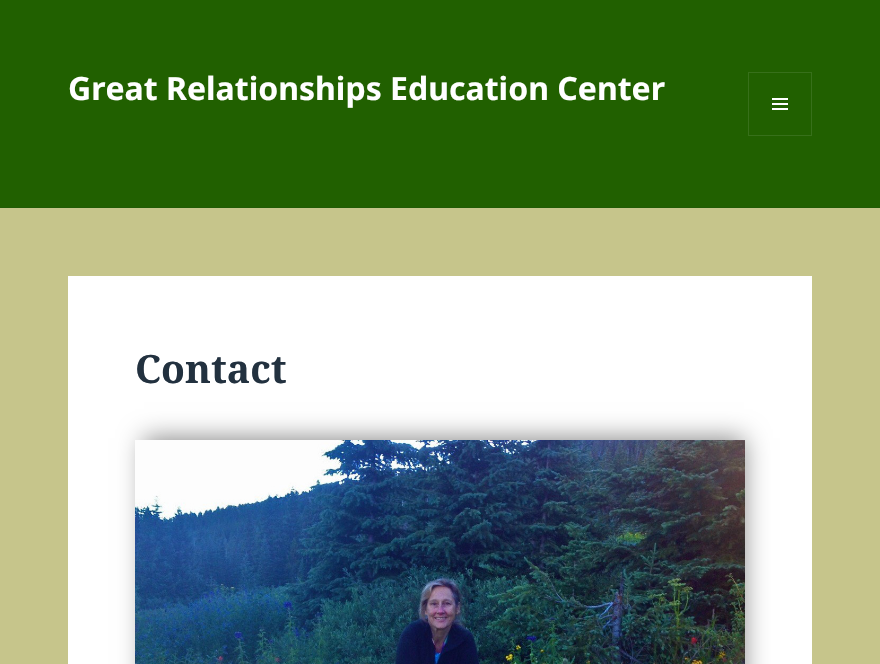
void draw(SkCanvas* canvas) {
  SkPaint paint;
  paint.setAntiAlias(true);
  auto face = [&](const char* family, int weight, float size, bool italic = false) {
    SkFontStyle style(weight, SkFontStyle::kNormal_Width,
      italic ? SkFontStyle::kItalic_Slant : SkFontStyle::kUpright_Slant);
    SkFont result(fontMgr->matchFamilyStyle(family, style), size);
    result.setSubpixel(true);
    return result;
  };
  auto paste = [&](const char* path, float x, float y, float w, float h) {
    auto image = SkImages::DeferredFromEncodedData(SkData::MakeFromFileName(path));
    canvas->drawImageRect(image, SkRect::MakeXYWH(x, y, w, h), SkSamplingOptions());
  };
  canvas->clear(0xffc6c58b);
  paint.setColor(0xff216000);
  canvas->drawRect(SkRect::MakeXYWH(0, 0, 880, 207), paint);
  paint.setColor(0xff215b06);
  canvas->drawRect(SkRect::MakeXYWH(0, 207, 880, 1), paint);
  paint.setStroke(true);
  paint.setStrokeWidth(1);
  paint.setColor(0xff37701a);
  canvas->drawRect(SkRect::MakeXYWH(748.5f, 72.5f, 63, 63), paint);
  paste("img/1.png", 772, 98, 16, 12);
  paint.setStroke(false);
  paint.setColor(0xffffffff);
  canvas->drawRect(SkRect::MakeXYWH(68, 276, 744, 388), paint);
  paint.setColor(0xff888888);
  paint.setMaskFilter(SkMaskFilter::MakeBlur(kNormal_SkBlurStyle, 12));
  canvas->drawRect(SkRect::MakeXYWH(144, 438, 600, 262), paint);
  paint.setMaskFilter(nullptr);
  paste("img/2.png", 135, 440, 610, 224);
  auto f0 = face("Noto Sans", 700, 32);
  paint.setColor(0xffffffff);
  canvas->drawString("Great Relationships Education Center", 68, 100, f0, paint);
  auto f1 = face("Noto Serif", 700, 39);
  paint.setColor(0xff22313f);
  canvas->drawString("Contact", 135, 383, f1, paint);
}
